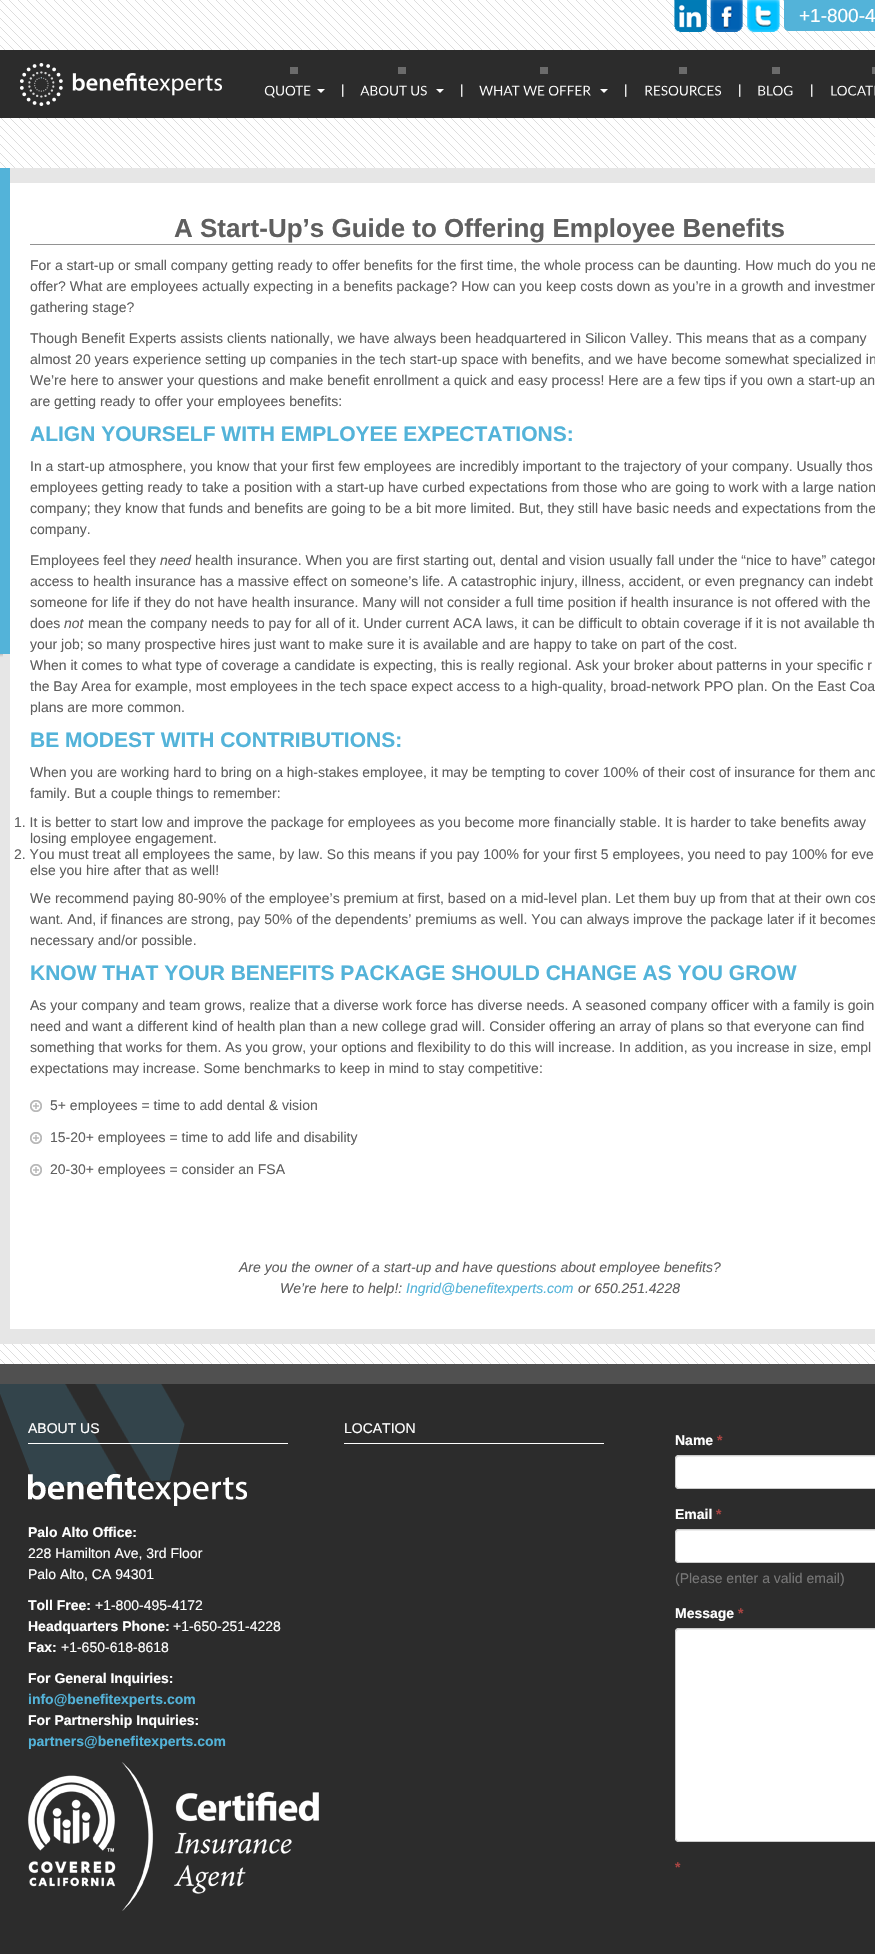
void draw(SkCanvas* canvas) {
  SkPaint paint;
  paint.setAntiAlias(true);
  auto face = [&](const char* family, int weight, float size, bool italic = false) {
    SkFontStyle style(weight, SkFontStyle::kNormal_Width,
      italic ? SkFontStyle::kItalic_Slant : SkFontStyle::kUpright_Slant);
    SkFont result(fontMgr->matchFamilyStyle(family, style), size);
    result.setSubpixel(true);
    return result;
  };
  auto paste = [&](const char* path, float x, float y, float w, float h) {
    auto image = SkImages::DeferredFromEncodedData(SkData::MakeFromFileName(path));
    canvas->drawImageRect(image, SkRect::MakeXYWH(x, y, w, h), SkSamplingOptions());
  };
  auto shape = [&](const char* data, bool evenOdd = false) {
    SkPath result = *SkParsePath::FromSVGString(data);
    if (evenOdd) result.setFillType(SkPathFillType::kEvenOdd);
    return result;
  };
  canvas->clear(0xffffffff);
  paste("img/1.png", 0, 0, 875, 1364);
  paste("img/2.png", 674, 0, 34, 33);
  paste("img/3.png", 710, 0, 33, 32);
  paste("img/4.png", 746, 0, 35, 33);
  paint.setColor(0xff53b3d9);
  canvas->drawPath(shape("M784 0H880V26C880 29 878 31 875 31H789C786 31 784 29 784 26Z"), paint);
  paint.setColor(0xff2c2c2c);
  canvas->drawRect(SkRect::MakeXYWH(0, 50, 875, 68), paint);
  paste("img/5.png", 20, 63, 202, 43);
  paint.setColor(0xff6b6b6b);
  canvas->drawRect(SkRect::MakeXYWH(290, 67, 8, 7), paint);
  paste("img/6.png", 264, 85, 47, 13);
  paint.setColor(0xfffefefe);
  canvas->drawPath(shape("M317 89H325L321 93Z"), paint);
  paint.setColor(0xff6b6b6b);
  canvas->drawRect(SkRect::MakeXYWH(398, 67, 8, 7), paint);
  paste("img/7.png", 360, 85, 47, 11);
  paste("img/8.png", 411, 85, 16, 11);
  paint.setColor(0xfffefefe);
  canvas->drawPath(shape("M436 89H444L440 93Z"), paint);
  paint.setColor(0xff6b6b6b);
  canvas->drawRect(SkRect::MakeXYWH(540, 67, 8, 7), paint);
  paste("img/9.png", 479, 85, 41, 11);
  paste("img/10.png", 523, 85, 22, 11);
  paste("img/11.png", 548, 85, 43, 11);
  paint.setColor(0xfffefefe);
  canvas->drawPath(shape("M600 89H608L604 93Z"), paint);
  paint.setColor(0xff6b6b6b);
  canvas->drawRect(SkRect::MakeXYWH(679, 67, 8, 7), paint);
  paste("img/12.png", 645, 85, 77, 11);
  canvas->drawRect(SkRect::MakeXYWH(772, 67, 8, 7), paint);
  paste("img/13.png", 758, 85, 35, 11);
  canvas->drawRect(SkRect::MakeXYWH(872, 67, 3, 7), paint);
  paste("img/14.png", 831, 85, 44, 11);
  paint.setColor(0xffe6e6e6);
  canvas->drawRect(SkRect::MakeXYWH(0, 168, 875, 1176), paint);
  paint.setColor(0xffffffff);
  canvas->drawRect(SkRect::MakeXYWH(10, 183, 865, 1146), paint);
  paste("img/15.png", 0, 650, 10, 7);
  paint.setColor(0xff53b3d9);
  canvas->drawRect(SkRect::MakeXYWH(0, 168, 10, 482), paint);
  paint.setColor(0xff929292);
  canvas->drawRect(SkRect::MakeXYWH(30, 244, 845, 1), paint);
  paste("img/16.png", 30, 1100, 12, 12);
  paste("img/16.png", 30, 1132, 12, 12);
  paste("img/16.png", 30, 1164, 12, 12);
  paint.setColor(0xff505050);
  canvas->drawRect(SkRect::MakeXYWH(0, 1364, 875, 20), paint);
  paint.setColor(0xff2c2c2c);
  canvas->drawRect(SkRect::MakeXYWH(0, 1384, 875, 570), paint);
  paste("img/17.png", 0, 1384, 185, 104);
  paint.setColor(0xffffffff);
  canvas->drawRect(SkRect::MakeXYWH(28, 1443, 260, 1), paint);
  paste("img/18.png", 28, 1474, 219, 32);
  paste("img/19.png", 28, 1762, 291, 149);
  canvas->drawRect(SkRect::MakeXYWH(344, 1443, 260, 1), paint);
  canvas->drawRoundRect(SkRect::MakeXYWH(675, 1455, 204, 34), 4, 4, paint);
  paint.setColor(0xffececec);
  canvas->drawPath(shape("M679 1457H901C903 1457 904 1458 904 1460V1459C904 1457 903 1456 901 1456H679C677 1456 676 1457 676 1459V1460C676 1458 677 1457 679 1457Z"), paint);
  paint.setStroke(true);
  paint.setStrokeWidth(1);
  paint.setColor(0xffcccccc);
  canvas->drawRoundRect(SkRect::MakeXYWH(675.5f, 1455.5f, 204, 33), 3.5f, 3.5f, paint);
  paint.setStroke(false);
  paint.setColor(0xffffffff);
  canvas->drawRoundRect(SkRect::MakeXYWH(675, 1529, 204, 34), 4, 4, paint);
  paint.setColor(0xffececec);
  canvas->drawPath(shape("M679 1531H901C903 1531 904 1532 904 1534V1533C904 1531 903 1530 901 1530H679C677 1530 676 1531 676 1533V1534C676 1532 677 1531 679 1531Z"), paint);
  paint.setStroke(true);
  paint.setColor(0xffcccccc);
  canvas->drawRoundRect(SkRect::MakeXYWH(675.5f, 1529.5f, 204, 33), 3.5f, 3.5f, paint);
  paint.setStroke(false);
  paint.setColor(0xffffffff);
  canvas->drawRoundRect(SkRect::MakeXYWH(675, 1628, 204, 214), 4, 4, paint);
  paint.setColor(0xffececec);
  canvas->drawPath(shape("M679 1630H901C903 1630 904 1631 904 1633V1632C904 1630 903 1629 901 1629H679C677 1629 676 1630 676 1632V1633C676 1631 677 1630 679 1630Z"), paint);
  paint.setStroke(true);
  paint.setColor(0xffcccccc);
  canvas->drawRoundRect(SkRect::MakeXYWH(675.5f, 1628.5f, 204, 213), 3.5f, 3.5f, paint);
  auto f0 = face("Liberation Sans", 400, 19);
  paint.setStroke(false);
  paint.setColor(0xffffffff);
  canvas->drawString("+1-800-4", 799, 22, f0, paint);
  auto f1 = face("Liberation Sans", 400, 13);
  {
    const struct { const char* s; float x, y; } items[] = {
      {"|", 341, 94},
      {"|", 460, 94},
      {"|", 624, 94},
      {"|", 738, 94},
      {"|", 810, 94},
    };
    for (auto [s, x, y] : items) {
      canvas->drawString(s, x, y, f1, paint);
    }
  }
  auto f2 = face("Liberation Sans", 700, 26);
  paint.setColor(0xff5f5f5f);
  canvas->drawString("A Start-Up’s Guide to Offering Employee Benefits", 174, 237, f2, paint);
  auto f3 = face("Liberation Sans", 400, 14);
  {
    const struct { const char* s; float x, y; } items[] = {
      {"For a start-up or small company getting ready to offer benefits for the first time, the whole process can be daunting. How much do you ne", 30, 270},
      {"offer? What are employees actually expecting in a benefits package? How can you keep costs down as you’re in a growth and investmen", 30, 291},
      {"gathering stage?", 30, 312},
      {"Though Benefit Experts assists clients nationally, we have always been headquartered in Silicon Valley. This means that as a company", 30, 343},
      {"almost 20 years experience setting up companies in the tech start-up space with benefits, and we have become somewhat specialized in", 30, 364},
      {"We’re here to answer your questions and make benefit enrollment a quick and easy process! Here are a few tips if you own a start-up an", 30, 385},
      {"are getting ready to offer your employees benefits:", 30, 406},
    };
    for (auto [s, x, y] : items) {
      canvas->drawString(s, x, y, f3, paint);
    }
  }
  auto f4 = face("Liberation Sans", 700, 21);
  paint.setColor(0xff53b3d9);
  canvas->drawString("ALIGN YOURSELF WITH EMPLOYEE EXPECTATIONS:", 30, 441, f4, paint);
  paint.setColor(0xff5f5f5f);
  {
    const struct { const char* s; float x, y; } items[] = {
      {"In a start-up atmosphere, you know that your first few employees are incredibly important to the trajectory of your company. Usually thos", 30, 471},
      {"employees getting ready to take a position with a start-up have curbed expectations from those who are going to work with a large nation", 30, 492},
      {"company; they know that funds and benefits are going to be a bit more limited. But, they still have basic needs and expectations from the", 30, 513},
      {"company.", 30, 534},
      {"Employees feel they", 30, 565},
    };
    for (auto [s, x, y] : items) {
      canvas->drawString(s, x, y, f3, paint);
    }
  }
  auto f5 = face("Liberation Sans", 400, 14, true);
  canvas->drawString("need", 160, 565, f5, paint);
  {
    const struct { const char* s; float x, y; } items[] = {
      {"health insurance. When you are first starting out, dental and vision usually fall under the “nice to have” categor", 195, 565},
      {"access to health insurance has a massive effect on someone’s life. A catastrophic injury, illness, accident, or even pregnancy can indebt", 30, 586},
      {"someone for life if they do not have health insurance. Many will not consider a full time position if health insurance is not offered with the", 30, 607},
      {"does", 30, 628},
    };
    for (auto [s, x, y] : items) {
      canvas->drawString(s, x, y, f3, paint);
    }
  }
  canvas->drawString("not", 64, 628, f5, paint);
  {
    const struct { const char* s; float x, y; } items[] = {
      {"mean the company needs to pay for all of it. Under current ACA laws, it can be difficult to obtain coverage if it is not available th", 88, 628},
      {"your job; so many prospective hires just want to make sure it is available and are happy to take on part of the cost.", 30, 649},
      {"When it comes to what type of coverage a candidate is expecting, this is really regional. Ask your broker about patterns in your specific r", 30, 670},
      {"the Bay Area for example, most employees in the tech space expect access to a high-quality, broad-network PPO plan. On the East Coa", 30, 691},
      {"plans are more common.", 30, 712},
    };
    for (auto [s, x, y] : items) {
      canvas->drawString(s, x, y, f3, paint);
    }
  }
  paint.setColor(0xff53b3d9);
  canvas->drawString("BE MODEST WITH CONTRIBUTIONS:", 30, 747, f4, paint);
  paint.setColor(0xff5f5f5f);
  {
    const struct { const char* s; float x, y; } items[] = {
      {"When you are working hard to bring on a high-stakes employee, it may be tempting to cover 100% of their cost of insurance for them and", 30, 777},
      {"family. But a couple things to remember:", 30, 798},
      {"1. It is better to start low and improve the package for employees as you become more financially stable. It is harder to take benefits away", 14, 827},
      {"losing employee engagement.", 30, 843},
      {"2. You must treat all employees the same, by law. So this means if you pay 100% for your first 5 employees, you need to pay 100% for eve", 14, 859},
      {"else you hire after that as well!", 30, 875},
      {"We recommend paying 80-90% of the employee’s premium at first, based on a mid-level plan. Let them buy up from that at their own cos", 30, 903},
      {"want. And, if finances are strong, pay 50% of the dependents’ premiums as well. You can always improve the package later if it becomes", 30, 924},
      {"necessary and/or possible.", 30, 945},
    };
    for (auto [s, x, y] : items) {
      canvas->drawString(s, x, y, f3, paint);
    }
  }
  paint.setColor(0xff53b3d9);
  canvas->drawString("KNOW THAT YOUR BENEFITS PACKAGE SHOULD CHANGE AS YOU GROW", 30, 980, f4, paint);
  paint.setColor(0xff5f5f5f);
  {
    const struct { const char* s; float x, y; } items[] = {
      {"As your company and team grows, realize that a diverse work force has diverse needs. A seasoned company officer with a family is goin", 30, 1010},
      {"need and want a different kind of health plan than a new college grad will. Consider offering an array of plans so that everyone can find", 30, 1031},
      {"something that works for them. As you grow, your options and flexibility to do this will increase. In addition, as you increase in size, empl", 30, 1052},
      {"expectations may increase. Some benchmarks to keep in mind to stay competitive:", 30, 1073},
      {"5+ employees = time to add dental & vision", 50, 1110},
      {"15-20+ employees = time to add life and disability", 50, 1142},
      {"20-30+ employees = consider an FSA", 50, 1174},
    };
    for (auto [s, x, y] : items) {
      canvas->drawString(s, x, y, f3, paint);
    }
  }
  canvas->drawString("Are you the owner of a start-up and have questions about employee benefits?", 239, 1272, f5, paint);
  canvas->drawString("We’re here to help!:", 280, 1293, f5, paint);
  paint.setColor(0xff53b3d9);
  canvas->drawString("Ingrid@benefitexperts.com", 406, 1293, f5, paint);
  paint.setColor(0xff5f5f5f);
  canvas->drawString("or 650.251.4228", 578, 1293, f5, paint);
  paint.setColor(0xffffffff);
  canvas->drawString("ABOUT US", 28, 1433, f3, paint);
  auto f6 = face("Liberation Sans", 700, 14);
  canvas->drawString("Palo Alto Office:", 28, 1537, f6, paint);
  canvas->drawString("228 Hamilton Ave, 3rd Floor", 28, 1558, f3, paint);
  canvas->drawString("Palo Alto, CA 94301", 28, 1579, f3, paint);
  canvas->drawString("Toll Free:", 28, 1610, f6, paint);
  canvas->drawString("+1-800-495-4172", 95, 1610, f3, paint);
  canvas->drawString("Headquarters Phone:", 28, 1631, f6, paint);
  canvas->drawString("+1-650-251-4228", 173, 1631, f3, paint);
  canvas->drawString("Fax:", 28, 1652, f6, paint);
  canvas->drawString("+1-650-618-8618", 61, 1652, f3, paint);
  canvas->drawString("For General Inquiries:", 28, 1683, f6, paint);
  paint.setColor(0xff53b3d9);
  canvas->drawString("info@benefitexperts.com", 28, 1704, f6, paint);
  paint.setColor(0xffffffff);
  canvas->drawString("For Partnership Inquiries:", 28, 1725, f6, paint);
  paint.setColor(0xff53b3d9);
  canvas->drawString("partners@benefitexperts.com", 28, 1746, f6, paint);
  paint.setColor(0xffffffff);
  canvas->drawString("LOCATION", 344, 1433, f3, paint);
  canvas->drawString("Name", 675, 1445, f6, paint);
  paint.setColor(0xffa94442);
  canvas->drawString("*", 717, 1445, f6, paint);
  paint.setColor(0xffffffff);
  canvas->drawString("Email", 675, 1519, f6, paint);
  paint.setColor(0xffa94442);
  canvas->drawString("*", 716, 1519, f6, paint);
  paint.setColor(0xff777777);
  canvas->drawString("(Please enter a valid email)", 675, 1583, f3, paint);
  paint.setColor(0xffffffff);
  canvas->drawString("Message", 675, 1618, f6, paint);
  paint.setColor(0xffa94442);
  canvas->drawString("*", 738, 1618, f6, paint);
  canvas->drawString("*", 675, 1872, f6, paint);
}
